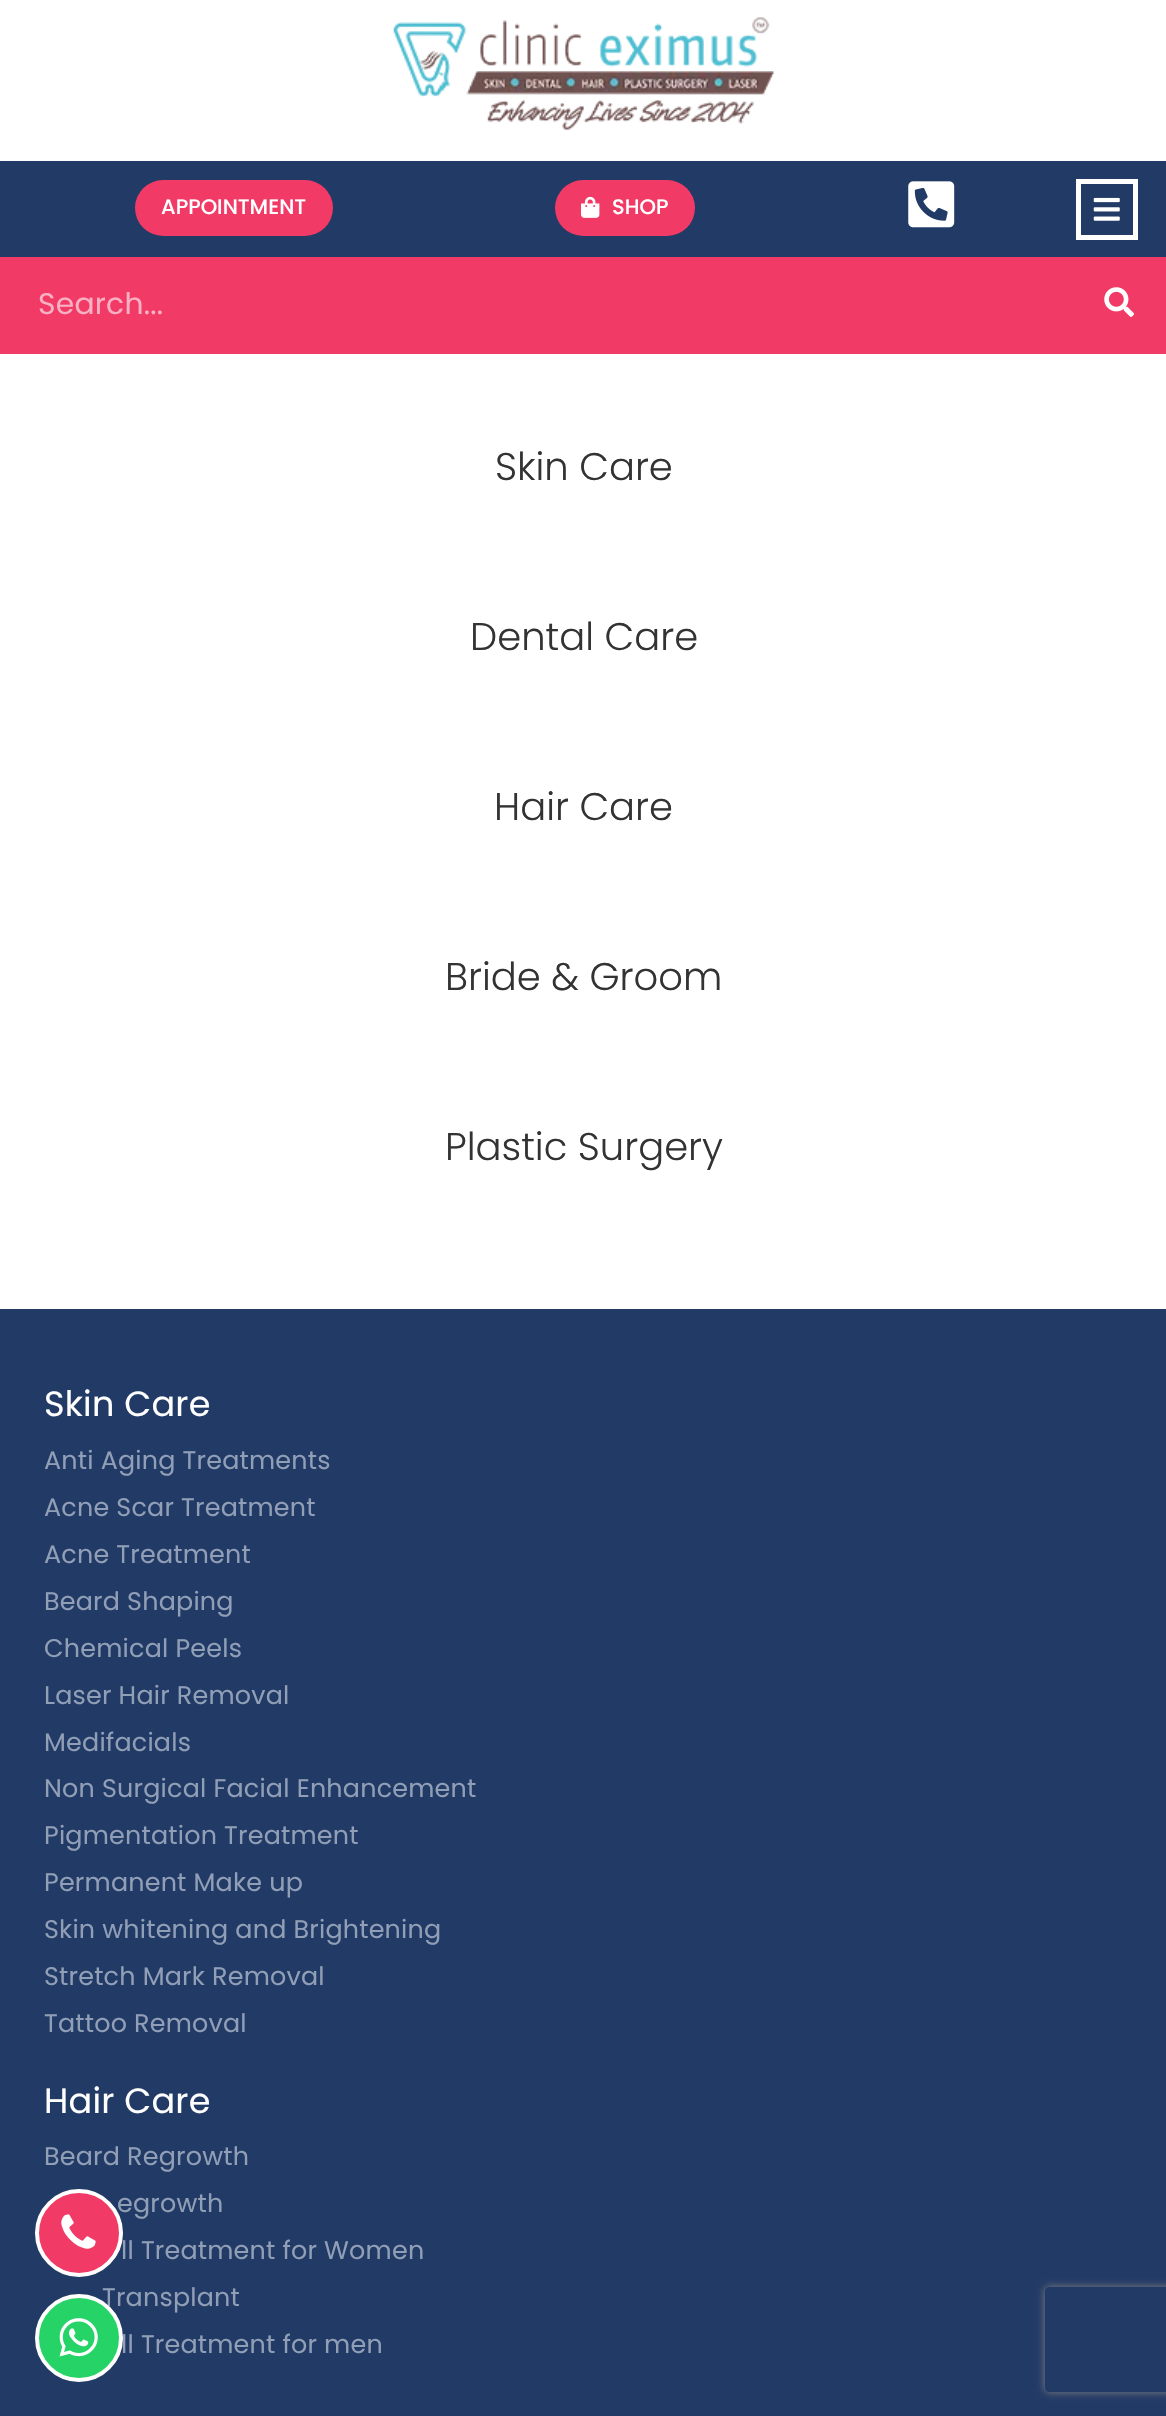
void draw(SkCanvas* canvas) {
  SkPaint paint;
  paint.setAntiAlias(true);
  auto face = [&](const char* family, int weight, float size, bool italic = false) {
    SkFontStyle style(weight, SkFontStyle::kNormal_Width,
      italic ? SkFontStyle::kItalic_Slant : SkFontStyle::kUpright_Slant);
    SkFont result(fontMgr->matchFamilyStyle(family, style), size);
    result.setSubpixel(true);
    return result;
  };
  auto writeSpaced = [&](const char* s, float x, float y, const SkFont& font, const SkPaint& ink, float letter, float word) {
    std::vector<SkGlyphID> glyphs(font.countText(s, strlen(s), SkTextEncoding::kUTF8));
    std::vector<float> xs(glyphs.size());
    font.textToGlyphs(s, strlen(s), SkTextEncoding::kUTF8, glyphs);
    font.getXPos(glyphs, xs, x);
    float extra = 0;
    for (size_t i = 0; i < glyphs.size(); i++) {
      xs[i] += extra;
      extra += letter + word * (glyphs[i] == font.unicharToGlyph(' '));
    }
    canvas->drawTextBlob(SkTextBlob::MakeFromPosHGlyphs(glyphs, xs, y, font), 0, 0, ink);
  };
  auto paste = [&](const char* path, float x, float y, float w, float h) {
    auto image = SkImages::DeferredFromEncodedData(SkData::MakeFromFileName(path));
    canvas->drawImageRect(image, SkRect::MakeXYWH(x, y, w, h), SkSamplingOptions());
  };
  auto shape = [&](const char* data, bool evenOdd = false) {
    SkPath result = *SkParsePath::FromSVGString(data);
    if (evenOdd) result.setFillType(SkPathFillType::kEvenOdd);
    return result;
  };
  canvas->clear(0xffffffff);
  paste("img/1.png", 393, 17, 381, 113);
  paint.setColor(0xff223a66);
  canvas->drawRect(SkRect::MakeXYWH(0, 161, 1166, 96), paint);
  paint.setColor(0xfff13a66);
  canvas->drawRoundRect(SkRect::MakeXYWH(135, 180, 198, 56), 28, 28, paint);
  canvas->drawRoundRect(SkRect::MakeXYWH(555, 180, 140, 56), 28, 28, paint);
  paste("img/2.png", 581, 196, 19, 22);
  paste("img/3.png", 908, 181, 47, 47);
  paint.setStroke(true);
  paint.setStrokeWidth(5);
  paint.setColor(0xffffffff);
  canvas->drawRect(SkRect::MakeXYWH(1078.5f, 181.5f, 57, 56), paint);
  paste("img/4.png", 1093, 197, 27, 24);
  paint.setStroke(false);
  paint.setColor(0xfff13a66);
  canvas->drawRect(SkRect::MakeXYWH(0, 257, 1166, 97), paint);
  paste("img/5.png", 1104, 287, 30, 30);
  paint.setColor(0xff223a66);
  canvas->drawRect(SkRect::MakeXYWH(0, 1309, 1166, 1107), paint);
  canvas->save();
  canvas->clipPath(shape("M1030 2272H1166V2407H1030ZM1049 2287H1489C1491 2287 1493 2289 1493 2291V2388C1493 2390 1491 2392 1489 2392H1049C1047 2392 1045 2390 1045 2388V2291C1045 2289 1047 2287 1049 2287Z", true), true);
  paint.setColor(0xff808080);
  paint.setMaskFilter(SkMaskFilter::MakeBlur(kNormal_SkBlurStyle, 4.5f));
  canvas->drawRoundRect(SkRect::MakeXYWH(1045, 2287, 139, 105), 4, 4, paint);
  paint.setMaskFilter(nullptr);
  canvas->restore();
  auto f0 = face("Poppins", 500, 21);
  paint.setColor(0xffffffff);
  canvas->drawString("APPOINTMENT", 161, 214, f0, paint);
  canvas->drawString("SHOP", 612, 214, f0, paint);
  auto f1 = face("Poppins", 400, 29.75f);
  paint.setColor(0xfff9b0c2);
  writeSpaced("Search...", 38, 314, f1, paint, 0.25f, 0);
  auto f2 = face("Poppins", 300, 38.5f);
  paint.setColor(0xff333333);
  {
    const struct { const char* s; float x, y; } items[] = {
      {"Skin Care", 495, 480},
      {"Dental Care", 470, 650},
      {"Hair Care", 494, 820},
      {"Bride & Groom", 445, 990},
      {"Plastic Surgery", 445, 1160},
    };
    for (auto [s, x, y] : items) {
      canvas->drawString(s, x, y, f2, paint);
    }
  }
  auto f3 = face("Poppins", 400, 35);
  paint.setColor(0xffffffff);
  writeSpaced("Skin Care", 44, 1416, f3, paint, 0.25f, 0);
  auto f4 = face("Poppins", 400, 25.4f);
  paint.setColor(0xff909eb6);
  {
    const struct { const char* s; float x, y; } items[] = {
      {"Anti Aging Treatments", 44, 1469},
      {"Acne Scar Treatment", 44, 1516},
      {"Acne Treatment", 44, 1563},
      {"Beard Shaping", 44, 1610},
      {"Chemical Peels", 44, 1657},
      {"Laser Hair Removal", 44, 1704},
      {"Medifacials", 44, 1751},
      {"Non Surgical Facial Enhancement", 44, 1797},
      {"Pigmentation Treatment", 44, 1844},
      {"Permanent Make up", 44, 1891},
      {"Skin whitening and Brightening", 44, 1938},
      {"Stretch Mark Removal", 44, 1985},
      {"Tattoo Removal", 44, 2032},
    };
    for (auto [s, x, y] : items) {
      writeSpaced(s, x, y, f4, paint, 0.2f, 0);
    }
  }
  paint.setColor(0xffffffff);
  writeSpaced("Hair Care", 44, 2113, f3, paint, 0.25f, 0);
  paint.setColor(0xff909eb6);
  {
    const struct { const char* s; float x, y; } items[] = {
      {"Beard Regrowth", 44, 2165},
      {"egrowth", 117, 2212},
      {"ll Treatment for Women", 121, 2259},
      {"Transplant", 102, 2306},
      {"ll Treatment for men", 121, 2353},
    };
    for (auto [s, x, y] : items) {
      writeSpaced(s, x, y, f4, paint, 0.2f, 0);
    }
  }
  paint.setColor(0xfff13a66);
  canvas->drawCircle(79, 2233, 42, paint);
  paint.setStroke(true);
  paint.setStrokeWidth(4);
  paint.setColor(0xffffffff);
  canvas->drawCircle(79, 2233, 42, paint);
  paste("img/6.png", 61, 2214, 35, 35);
  paint.setStroke(false);
  paint.setColor(0xff25d366);
  canvas->drawCircle(79, 2338, 42, paint);
  paint.setStroke(true);
  paint.setColor(0xffffffff);
  canvas->drawCircle(79, 2338, 42, paint);
  paste("img/7.png", 59, 2318, 39, 39);
}
